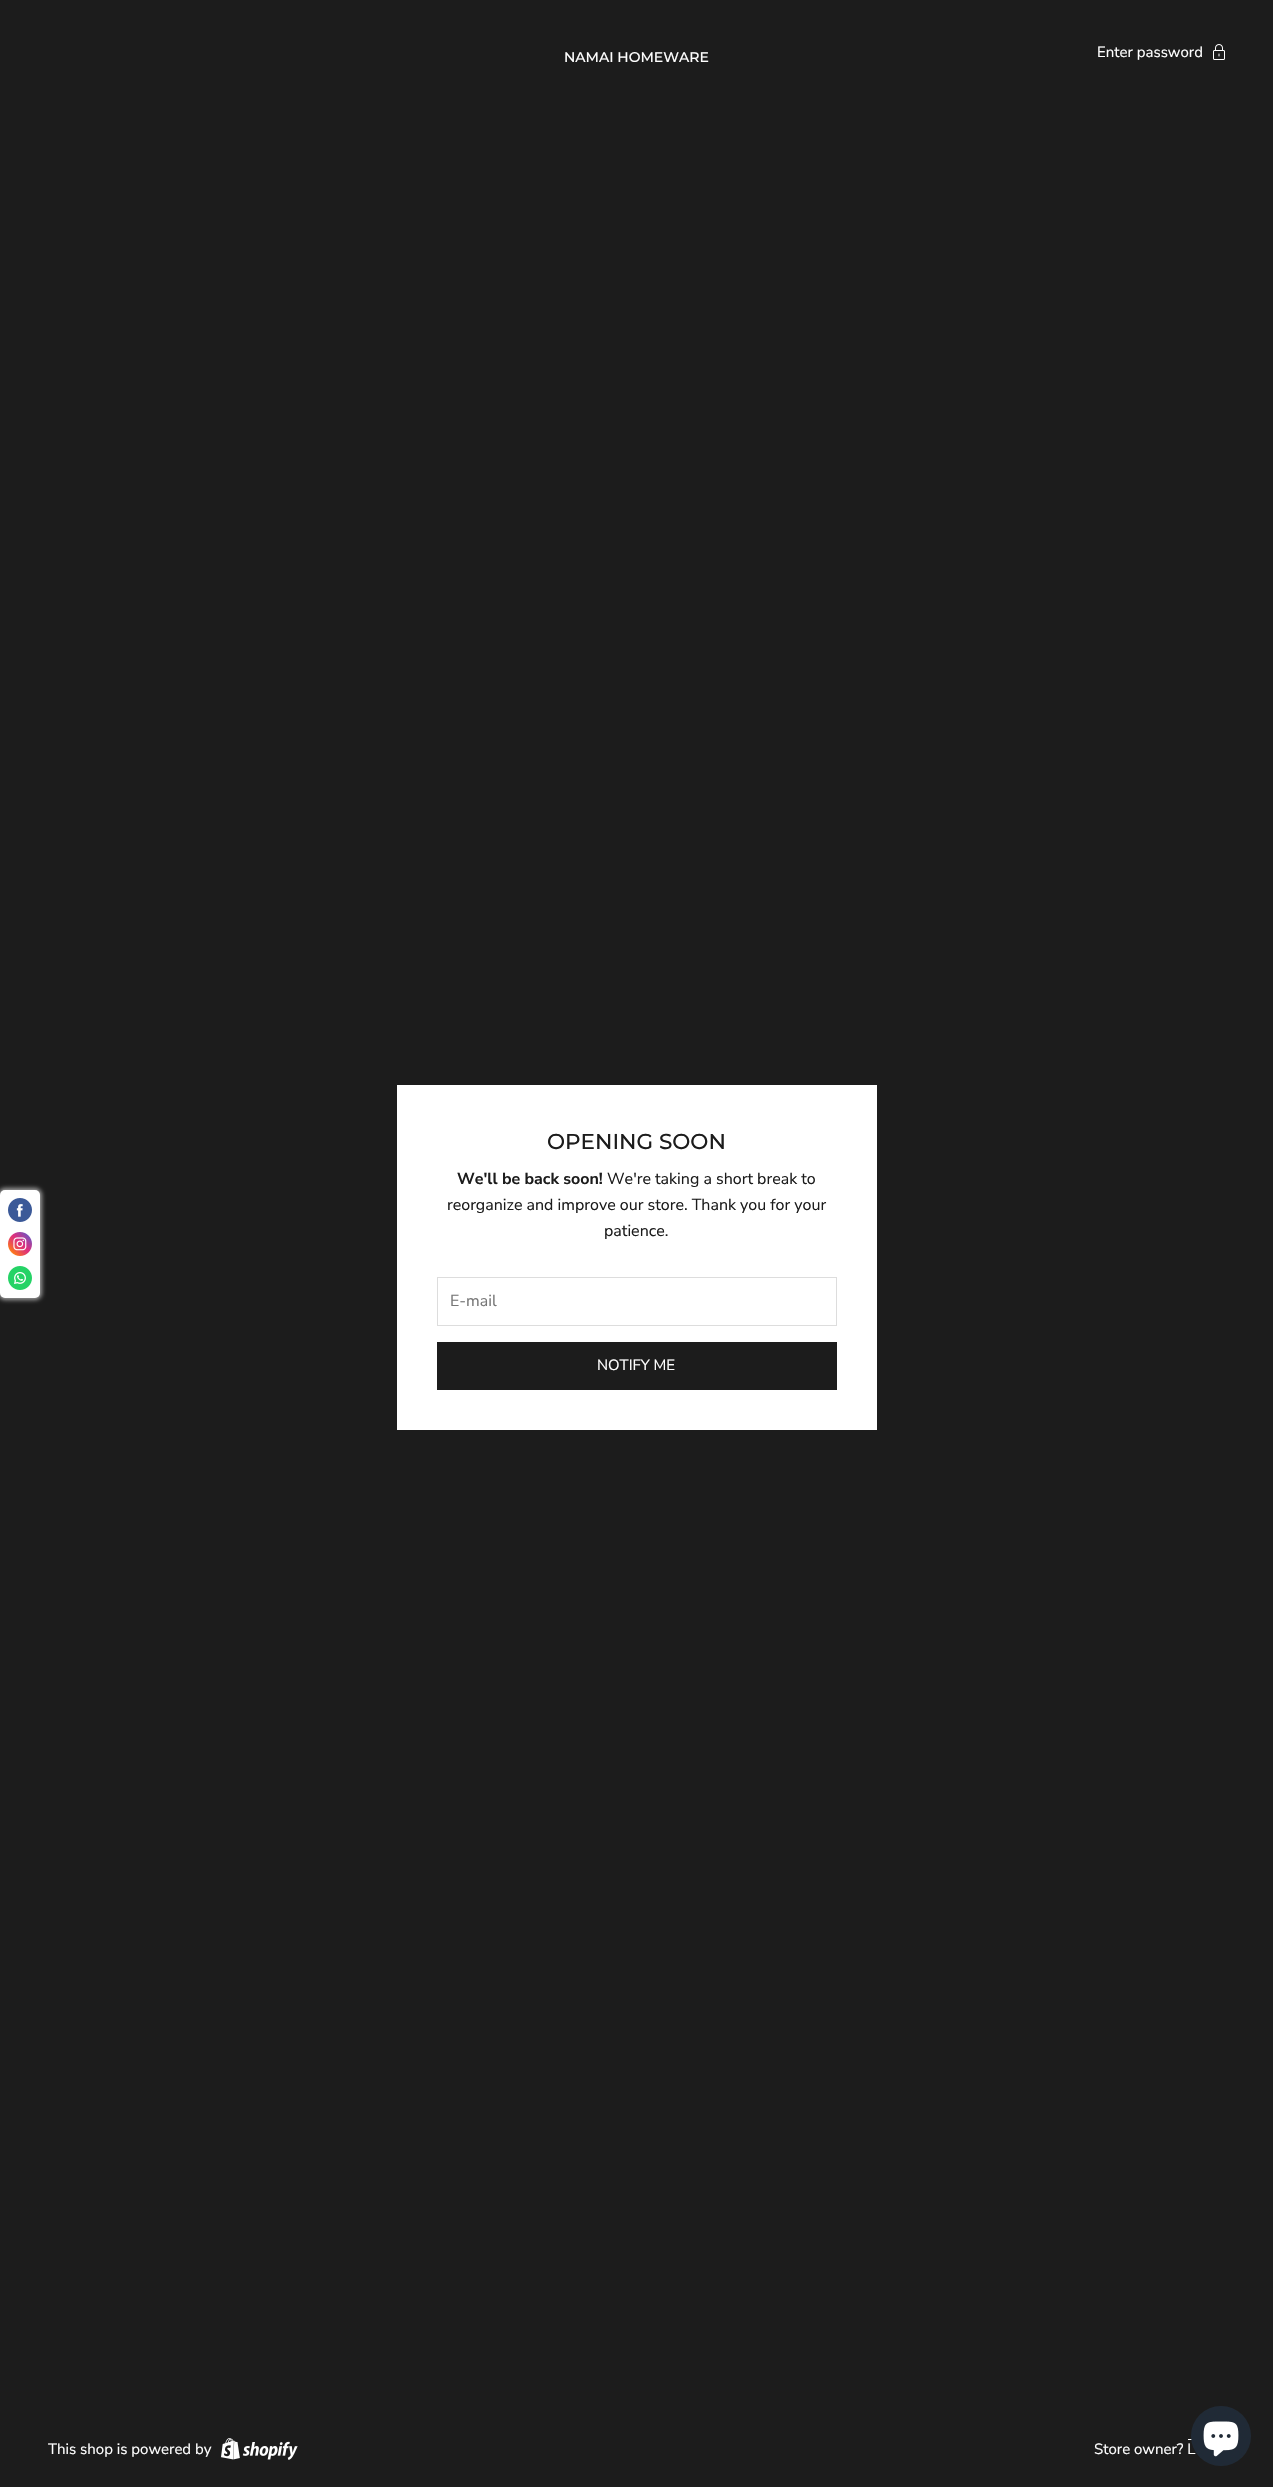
void draw(SkCanvas* canvas) {
  SkPaint paint;
  paint.setAntiAlias(true);
  auto face = [&](const char* family, int weight, float size, bool italic = false) {
    SkFontStyle style(weight, SkFontStyle::kNormal_Width,
      italic ? SkFontStyle::kItalic_Slant : SkFontStyle::kUpright_Slant);
    SkFont result(fontMgr->matchFamilyStyle(family, style), size);
    result.setSubpixel(true);
    return result;
  };
  auto paste = [&](const char* path, float x, float y, float w, float h) {
    auto image = SkImages::DeferredFromEncodedData(SkData::MakeFromFileName(path));
    canvas->drawImageRect(image, SkRect::MakeXYWH(x, y, w, h), SkSamplingOptions());
  };
  canvas->clear(0xff1c1c1c);
  paint.setColor(0xff9e9e9e);
  paint.setMaskFilter(SkMaskFilter::MakeBlur(kNormal_SkBlurStyle, 2));
  canvas->drawRoundRect(SkRect::MakeXYWH(-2, 1188, 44, 112), 7, 7, paint);
  paint.setMaskFilter(nullptr);
  paint.setColor(0xffffffff);
  canvas->drawRoundRect(SkRect::MakeXYWH(0, 1190, 40, 108), 5, 5, paint);
  paste("img/1.png", 8, 1198, 24, 24);
  paste("img/2.png", 8, 1232, 24, 24);
  paste("img/3.png", 8, 1266, 24, 24);
  paste("img/4.png", 1213, 44, 12, 16);
  canvas->drawRect(SkRect::MakeXYWH(397, 1085, 480, 345), paint);
  paint.setStroke(true);
  paint.setStrokeWidth(1);
  paint.setColor(0xffdddddd);
  canvas->drawRect(SkRect::MakeXYWH(437.5f, 1277.5f, 399, 48), paint);
  paint.setStroke(false);
  paint.setColor(0xff1c1c1c);
  canvas->drawRect(SkRect::MakeXYWH(437.5f, 1342.5f, 399, 47), paint);
  paint.setStroke(true);
  canvas->drawRect(SkRect::MakeXYWH(437.5f, 1342.5f, 399, 47), paint);
  paste("img/5.png", 221, 2438, 77, 22);
  paint.setStroke(false);
  paint.setColor(0xffffffff);
  canvas->drawRect(SkRect::MakeXYWH(1188, 2439, 4, 1), paint);
  auto f0 = face("Montserrat", 500, 14);
  canvas->drawString("NAMAI HOMEWARE", 564, 62, f0, paint);
  auto f1 = face("Nunito Sans", 400, 15);
  canvas->drawString("Enter password", 1097, 57, f1, paint);
  auto f2 = face("Montserrat", 500, 21.5f);
  paint.setColor(0xff1c1c1c);
  canvas->drawString("OPENING SOON", 547, 1149, f2, paint);
  auto f3 = face("Nunito Sans", 700, 16);
  canvas->drawString("We'll be back soon!", 457, 1184, f3, paint);
  auto f4 = face("Nunito Sans", 400, 16);
  {
    const struct { const char* s; float x, y; } items[] = {
      {"We're taking a short break to", 607, 1184},
      {"reorganize and improve our store. Thank you for your", 447, 1210},
      {"patience.", 604, 1236},
    };
    for (auto [s, x, y] : items) {
      canvas->drawString(s, x, y, f4, paint);
    }
  }
  paint.setColor(0xff777777);
  canvas->drawString("E-mail", 450, 1306, f4, paint);
  paint.setColor(0xffffffff);
  {
    const struct { const char* s; float x, y; } items[] = {
      {"NOTIFY ME", 597, 1370},
      {"This shop is powered by", 48, 2454},
      {"Store owner? L", 1094, 2454},
    };
    for (auto [s, x, y] : items) {
      canvas->drawString(s, x, y, f1, paint);
    }
  }
  paint.setColor(0xff202a36);
  canvas->drawCircle(1221, 2436, 30, paint);
  paste("img/6.png", 1203, 2421, 36, 36);
}
